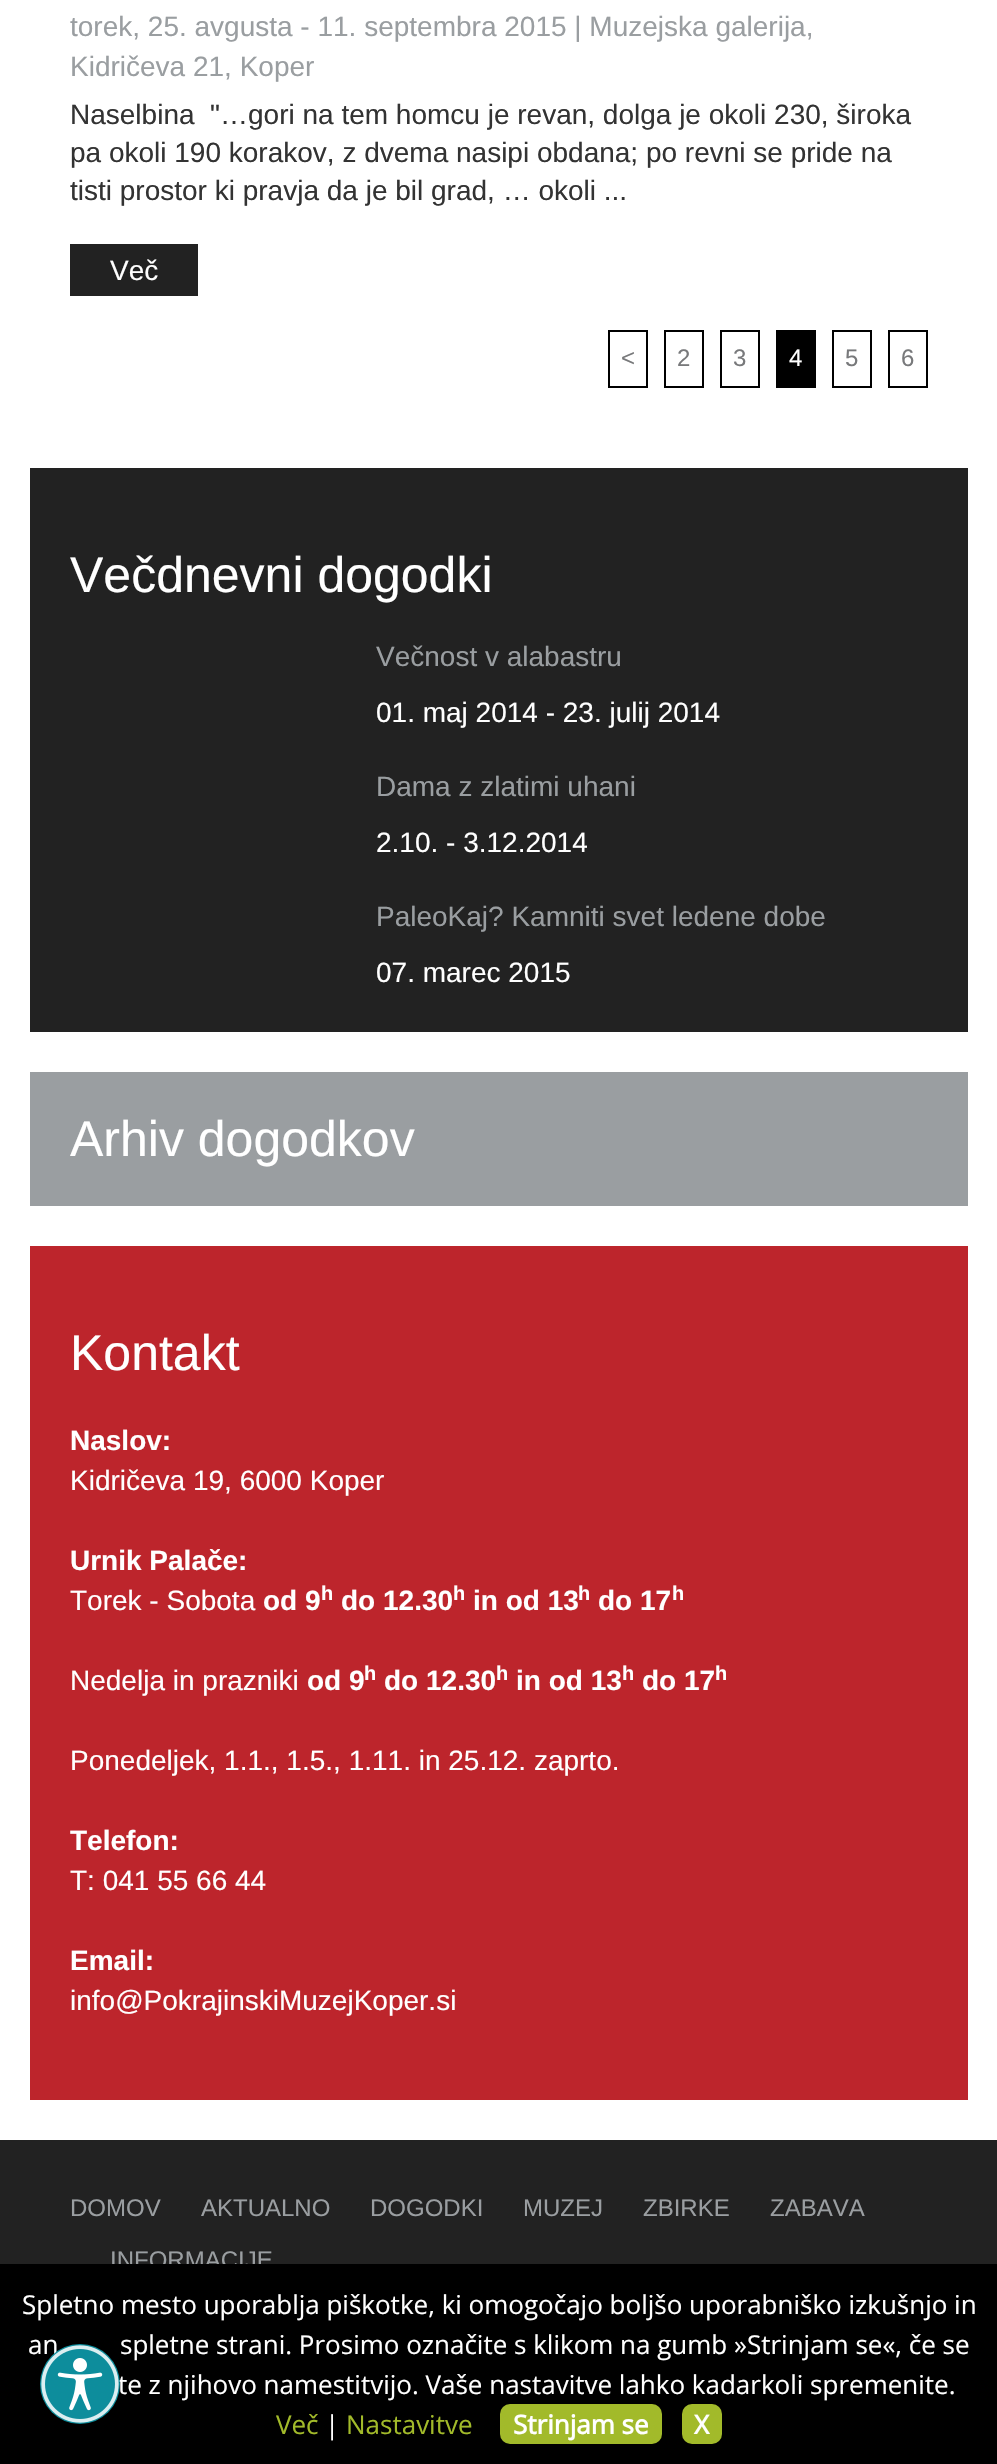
void draw(SkCanvas* canvas) {
  SkPaint paint;
  paint.setAntiAlias(true);
  auto face = [&](const char* family, int weight, float size, bool italic = false) {
    SkFontStyle style(weight, SkFontStyle::kNormal_Width,
      italic ? SkFontStyle::kItalic_Slant : SkFontStyle::kUpright_Slant);
    SkFont result(fontMgr->matchFamilyStyle(family, style), size);
    result.setSubpixel(true);
    return result;
  };
  auto paste = [&](const char* path, float x, float y, float w, float h) {
    auto image = SkImages::DeferredFromEncodedData(SkData::MakeFromFileName(path));
    canvas->drawImageRect(image, SkRect::MakeXYWH(x, y, w, h), SkSamplingOptions());
  };
  canvas->clear(0xffffffff);
  paint.setColor(0xff222222);
  canvas->drawRect(SkRect::MakeXYWH(70, 244, 128, 52), paint);
  paint.setStroke(true);
  paint.setStrokeWidth(2);
  paint.setColor(0xff000000);
  canvas->drawRect(SkRect::MakeXYWH(609, 331, 38, 56), paint);
  canvas->drawRect(SkRect::MakeXYWH(665, 331, 38, 56), paint);
  canvas->drawRect(SkRect::MakeXYWH(721, 331, 38, 56), paint);
  paint.setStroke(false);
  canvas->drawRect(SkRect::MakeXYWH(776, 330, 40, 58), paint);
  paint.setStroke(true);
  canvas->drawRect(SkRect::MakeXYWH(833, 331, 38, 56), paint);
  canvas->drawRect(SkRect::MakeXYWH(889, 331, 38, 56), paint);
  paint.setStroke(false);
  {
    const struct { float x, y, w, h; SkColor color; } items[] = {
      {30, 468, 938, 564, 0xff222222},
      {30, 1072, 938, 134, 0xff9a9ea1},
      {30, 1246, 938, 854, 0xffbd252c},
      {0, 2140, 997, 124, 0xff222222},
    };
    for (auto [x, y, w, h, color] : items) {
      paint.setColor(color);
      canvas->drawRect(SkRect::MakeXYWH(x, y, w, h), paint);
    }
  }
  auto f0 = face("Liberation Sans", 400, 28);
  paint.setColor(0xff9a9ea1);
  canvas->drawString("torek, 25. avgusta - 11. septembra 2015 | Muzejska galerija,", 70, 36, f0, paint);
  canvas->drawString("Kidričeva 21, Koper", 70, 76, f0, paint);
  paint.setColor(0xff333333);
  {
    const struct { const char* s; float x, y; } items[] = {
      {"Naselbina  \"…gori na tem homcu je revan, dolga je okoli 230, široka", 70, 124},
      {"pa okoli 190 korakov, z dvema nasipi obdana; po revni se pride na", 70, 162},
      {"tisti prostor ki pravja da je bil grad, … okoli ...", 70, 200},
    };
    for (auto [s, x, y] : items) {
      canvas->drawString(s, x, y, f0, paint);
    }
  }
  paint.setColor(0xffffffff);
  canvas->drawString("Več", 110, 280, f0, paint);
  auto f1 = face("Liberation Sans", 400, 24);
  paint.setColor(0xff78797b);
  {
    const struct { const char* s; float x, y; } items[] = {
      {"<", 621, 366},
      {"2", 677, 366},
      {"3", 733, 366},
    };
    for (auto [s, x, y] : items) {
      canvas->drawString(s, x, y, f1, paint);
    }
  }
  paint.setColor(0xffffffff);
  canvas->drawString("4", 789, 366, f1, paint);
  paint.setColor(0xff78797b);
  canvas->drawString("5", 845, 366, f1, paint);
  canvas->drawString("6", 901, 366, f1, paint);
  auto f2 = face("Liberation Sans", 400, 50);
  paint.setColor(0xffffffff);
  canvas->drawString("Večdnevni dogodki", 70, 592, f2, paint);
  paint.setColor(0xff9a9ea1);
  canvas->drawString("Večnost v alabastru", 376, 666, f0, paint);
  paint.setColor(0xffffffff);
  canvas->drawString("01. maj 2014 - 23. julij 2014", 376, 722, f0, paint);
  paint.setColor(0xff9a9ea1);
  canvas->drawString("Dama z zlatimi uhani", 376, 796, f0, paint);
  paint.setColor(0xffffffff);
  canvas->drawString("2.10. - 3.12.2014", 376, 852, f0, paint);
  paint.setColor(0xff9a9ea1);
  canvas->drawString("PaleoKaj? Kamniti svet ledene dobe", 376, 926, f0, paint);
  paint.setColor(0xffffffff);
  canvas->drawString("07. marec 2015", 376, 982, f0, paint);
  canvas->drawString("Arhiv dogodkov", 70, 1156, f2, paint);
  canvas->drawString("Kontakt", 70, 1370, f2, paint);
  auto f3 = face("Liberation Sans", 700, 28);
  canvas->drawString("Naslov:", 70, 1450, f3, paint);
  canvas->drawString("Kidričeva 19, 6000 Koper", 70, 1490, f0, paint);
  canvas->drawString("Urnik Palače:", 70, 1570, f3, paint);
  canvas->drawString("Torek - Sobota", 70, 1610, f0, paint);
  canvas->drawString("od 9", 263, 1610, f3, paint);
  auto f4 = face("Liberation Sans", 700, 20);
  canvas->drawString("h", 321, 1600, f4, paint);
  canvas->drawString("do 12.30", 341, 1610, f3, paint);
  canvas->drawString("h", 453, 1600, f4, paint);
  canvas->drawString("in od 13", 473, 1610, f3, paint);
  canvas->drawString("h", 578, 1600, f4, paint);
  canvas->drawString("do 17", 598, 1610, f3, paint);
  canvas->drawString("h", 672, 1600, f4, paint);
  canvas->drawString("Nedelja in prazniki", 70, 1690, f0, paint);
  canvas->drawString("od 9", 307, 1690, f3, paint);
  canvas->drawString("h", 364, 1680, f4, paint);
  canvas->drawString("do 12.30", 384, 1690, f3, paint);
  canvas->drawString("h", 496, 1680, f4, paint);
  canvas->drawString("in od 13", 516, 1690, f3, paint);
  canvas->drawString("h", 622, 1680, f4, paint);
  canvas->drawString("do 17", 642, 1690, f3, paint);
  canvas->drawString("h", 715, 1680, f4, paint);
  canvas->drawString("Ponedeljek, 1.1., 1.5., 1.11. in 25.12. zaprto.", 70, 1770, f0, paint);
  canvas->drawString("Telefon:", 70, 1850, f3, paint);
  canvas->drawString("T: 041 55 66 44", 70, 1890, f0, paint);
  canvas->drawString("Email:", 70, 1970, f3, paint);
  canvas->drawString("info@PokrajinskiMuzejKoper.si", 70, 2010, f0, paint);
  paint.setColor(0xff9a9ea1);
  {
    const struct { const char* s; float x, y; } items[] = {
      {"DOMOV", 70, 2216},
      {"AKTUALNO", 201, 2216},
      {"DOGODKI", 370, 2216},
      {"MUZEJ", 523, 2216},
      {"ZBIRKE", 643, 2216},
      {"ZABAVA", 770, 2216},
      {"INFORMACIJE", 110, 2268},
    };
    for (auto [s, x, y] : items) {
      canvas->drawString(s, x, y, f1, paint);
    }
  }
  paint.setColor(0xff000000);
  canvas->drawRect(SkRect::MakeXYWH(0, 2264, 997, 200), paint);
  auto f5 = face("Open Sans", 400, 26);
  paint.setColor(0xffffffff);
  {
    const struct { const char* s; float x, y; } items[] = {
      {"Spletno mesto uporablja piškotke, ki omogočajo boljšo uporabniško izkušnjo in", 22, 2314},
      {"an", 28, 2354},
      {"spletne strani. Prosimo označite s klikom na gumb »Strinjam se«, če se", 120, 2354},
      {"te z njihovo namestitvijo. Vaše nastavitve lahko kadarkoli spremenite.", 118, 2394},
    };
    for (auto [s, x, y] : items) {
      canvas->drawString(s, x, y, f5, paint);
    }
  }
  paint.setColor(0xffa2ba2a);
  canvas->drawString("Več", 276, 2434, f5, paint);
  paint.setColor(0xffffffff);
  canvas->drawString("|", 325, 2434, f5, paint);
  paint.setColor(0xffa2ba2a);
  canvas->drawString("Nastavitve", 346, 2434, f5, paint);
  canvas->drawRoundRect(SkRect::MakeXYWH(500, 2404, 162, 40), 10, 10, paint);
  auto f6 = face("Open Sans", 700, 26);
  paint.setColor(0xffffffff);
  canvas->drawString("Strinjam se", 513, 2434, f6, paint);
  paint.setColor(0xffa2ba2a);
  canvas->drawRoundRect(SkRect::MakeXYWH(682, 2404, 40, 40), 10, 10, paint);
  paint.setColor(0xffffffff);
  canvas->drawString("X", 694, 2434, f6, paint);
  paint.setColor(0xff0d8d9c);
  canvas->drawCircle(80, 2384, 40, paint);
  paste("img/1.png", 41, 2345, 78, 78);
}
